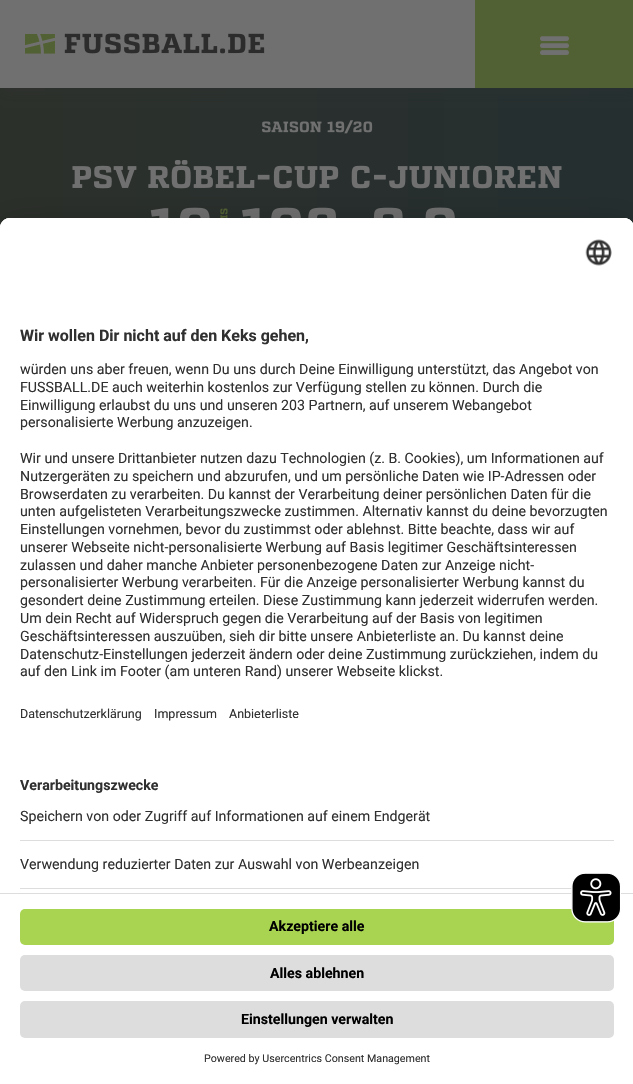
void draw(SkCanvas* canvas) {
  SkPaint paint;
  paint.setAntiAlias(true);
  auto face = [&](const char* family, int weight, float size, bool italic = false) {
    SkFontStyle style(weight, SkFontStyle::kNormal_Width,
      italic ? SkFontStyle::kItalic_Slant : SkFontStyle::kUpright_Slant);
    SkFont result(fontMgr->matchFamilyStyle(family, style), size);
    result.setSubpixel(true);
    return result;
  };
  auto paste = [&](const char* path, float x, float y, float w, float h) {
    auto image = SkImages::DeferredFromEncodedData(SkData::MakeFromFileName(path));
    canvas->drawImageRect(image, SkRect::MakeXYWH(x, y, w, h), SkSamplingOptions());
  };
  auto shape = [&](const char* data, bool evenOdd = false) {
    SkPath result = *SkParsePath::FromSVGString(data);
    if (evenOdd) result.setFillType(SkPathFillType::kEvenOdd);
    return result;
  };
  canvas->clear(0xffffffff);
  {
    const SkColor colors[] = {0xff2c302b, 0xff252f30};
    const float stops[] = {0, 1};
    const SkPoint ends[] = {{0, 251}, {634, 251}};
    paint.setShader(SkGradientShader::MakeLinear(ends, colors, stops, 2, SkTileMode::kClamp));
    paint.setAlpha(255);
  }
  canvas->drawRect(SkRect::MakeXYWH(0, 88, 633, 140), paint);
  paint.setShader(nullptr);
  paint.setColor(0x4d333333);
  paint.setMaskFilter(SkMaskFilter::MakeBlur(kNormal_SkBlurStyle, 6));
  canvas->drawRect(SkRect::MakeXYWH(3, 3, 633, 87), paint);
  paint.setMaskFilter(nullptr);
  paint.setColor(0xff707070);
  canvas->drawRect(SkRect::MakeXYWH(0, 0, 475, 88), paint);
  paste("img/1.png", 25, 34, 30, 20);
  paste("img/2.png", 64, 33, 201, 21);
  paint.setColor(0xff526133);
  canvas->drawRect(SkRect::MakeXYWH(475, 0, 158, 88), paint);
  paste("img/3.png", 540, 36, 29, 19);
  paste("img/4.png", 262, 120, 111, 14);
  paste("img/5.png", 72, 160, 490, 29);
  paste("img/6.png", 150, 207, 60, 11);
  paste("img/7.png", 220, 208, 8, 10);
  paste("img/8.png", 242, 207, 94, 11);
  paste("img/9.png", 373, 207, 82, 11);
  paint.setColor(0x38000000);
  paint.setMaskFilter(SkMaskFilter::MakeBlur(kNormal_SkBlurStyle, 16));
  canvas->drawRoundRect(SkRect::MakeXYWH(0, 224, 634, 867), 10, 10, paint);
  paint.setMaskFilter(nullptr);
  paint.setColor(0xffffffff);
  canvas->drawPath(shape("M10 218H624C629.5 218 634 222.5 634 228V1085H0V228C0 222.5 4.5 218 10 218Z"), paint);
  canvas->drawPath(shape("M10 218H624C629.5 218 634 222.5 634 228V893H0V228C0 222.5 4.5 218 10 218Z"), paint);
  canvas->drawPath(shape("M10 218H624C629.5 218 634 222.5 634 228V763H0V228C0 222.5 4.5 218 10 218Z"), paint);
  paste("img/10.png", 585, 239, 27, 27);
  {
    const struct { float x, y, w, h; SkColor color; } items[] = {
      {20, 840, 594, 1, 0xffdddddd},
      {20, 888, 552, 1, 0xffdddddd},
      {0, 893, 633, 1, 0xffdddddd},
    };
    for (auto [x, y, w, h, color] : items) {
      paint.setColor(color);
      canvas->drawRect(SkRect::MakeXYWH(x, y, w, h), paint);
    }
  }
  paint.setColor(0xffa8d451);
  canvas->drawRoundRect(SkRect::MakeXYWH(20, 909, 594, 36), 5, 5, paint);
  paint.setColor(0xffdddddd);
  canvas->drawRoundRect(SkRect::MakeXYWH(20, 955, 594, 36), 5, 5, paint);
  canvas->drawRoundRect(SkRect::MakeXYWH(20, 1001, 594, 37), 5, 5, paint);
  paste("img/11.png", 571, 873, 50, 50);
  auto f0 = face("Roboto", 700, 16);
  paint.setColor(0xff303030);
  canvas->drawString("Wir wollen Dir nicht auf den Keks gehen,", 20, 341, f0, paint);
  auto f1 = face("Roboto", 400, 14.2f);
  {
    const struct { const char* s; float x, y; } items[] = {
      {"würden uns aber freuen, wenn Du uns durch Deine Einwilligung unterstützt, das Angebot von", 20, 374},
      {"FUSSBALL.DE auch weiterhin kostenlos zur Verfügung stellen zu können. Durch die", 20, 392},
      {"Einwilligung erlaubst du uns und unseren 203 Partnern, auf unserem Webangebot", 20, 410},
      {"personalisierte Werbung anzuzeigen.", 20, 427},
      {"Wir und unsere Drittanbieter nutzen dazu Technologien (z. B. Cookies), um Informationen auf", 20, 463},
      {"Nutzergeräten zu speichern und abzurufen, und um persönliche Daten wie IP-Adressen oder", 20, 481},
      {"Browserdaten zu verarbeiten. Du kannst der Verarbeitung deiner persönlichen Daten für die", 20, 499},
      {"unten aufgelisteten Verarbeitungszwecke zustimmen. Alternativ kannst du deine bevorzugten", 20, 516},
      {"Einstellungen vornehmen, bevor du zustimmst oder ablehnst. Bitte beachte, dass wir auf", 20, 534},
      {"unserer Webseite nicht-personalisierte Werbung auf Basis legitimer Geschäftsinteressen", 20, 552},
      {"zulassen und daher manche Anbieter personenbezogene Daten zur Anzeige nicht-", 20, 570},
      {"personalisierter Werbung verarbeiten. Für die Anzeige personalisierter Werbung kannst du", 20, 587},
      {"gesondert deine Zustimmung erteilen. Diese Zustimmung kann jederzeit widerrufen werden.", 20, 605},
      {"Um dein Recht auf Widerspruch gegen die Verarbeitung auf der Basis von legitimen", 20, 623},
      {"Geschäftsinteressen auszuüben, sieh dir bitte unsere Anbieterliste an. Du kannst deine", 20, 641},
      {"Datenschutz-Einstellungen jederzeit ändern oder deine Zustimmung zurückziehen, indem du", 20, 659},
      {"auf den Link im Footer (am unteren Rand) unserer Webseite klickst.", 20, 676},
    };
    for (auto [s, x, y] : items) {
      canvas->drawString(s, x, y, f1, paint);
    }
  }
  auto f2 = face("Roboto", 400, 12.5f);
  {
    const struct { const char* s; float x, y; } items[] = {
      {"Datenschutzerklärung", 20, 718},
      {"Impressum", 154, 718},
      {"Anbieterliste", 229, 718},
    };
    for (auto [s, x, y] : items) {
      canvas->drawString(s, x, y, f2, paint);
    }
  }
  auto f3 = face("Roboto", 700, 14.2f);
  canvas->drawString("Verarbeitungszwecke", 20, 790, f3, paint);
  canvas->drawString("Speichern von oder Zugriff auf Informationen auf einem Endgerät", 20, 821, f1, paint);
  canvas->drawString("Verwendung reduzierter Daten zur Auswahl von Werbeanzeigen", 20, 869, f1, paint);
  paint.setColor(0xff000000);
  {
    const struct { const char* s; float x, y; } items[] = {
      {"Akzeptiere alle", 269, 931},
      {"Alles ablehnen", 270, 978},
      {"Einstellungen verwalten", 241, 1024},
    };
    for (auto [s, x, y] : items) {
      canvas->drawString(s, x, y, f3, paint);
    }
  }
  auto f4 = face("Roboto", 400, 10.7f);
  paint.setColor(0xff303030);
  canvas->drawString("Powered by Usercentrics Consent Management", 204, 1062, f4, paint);
}
